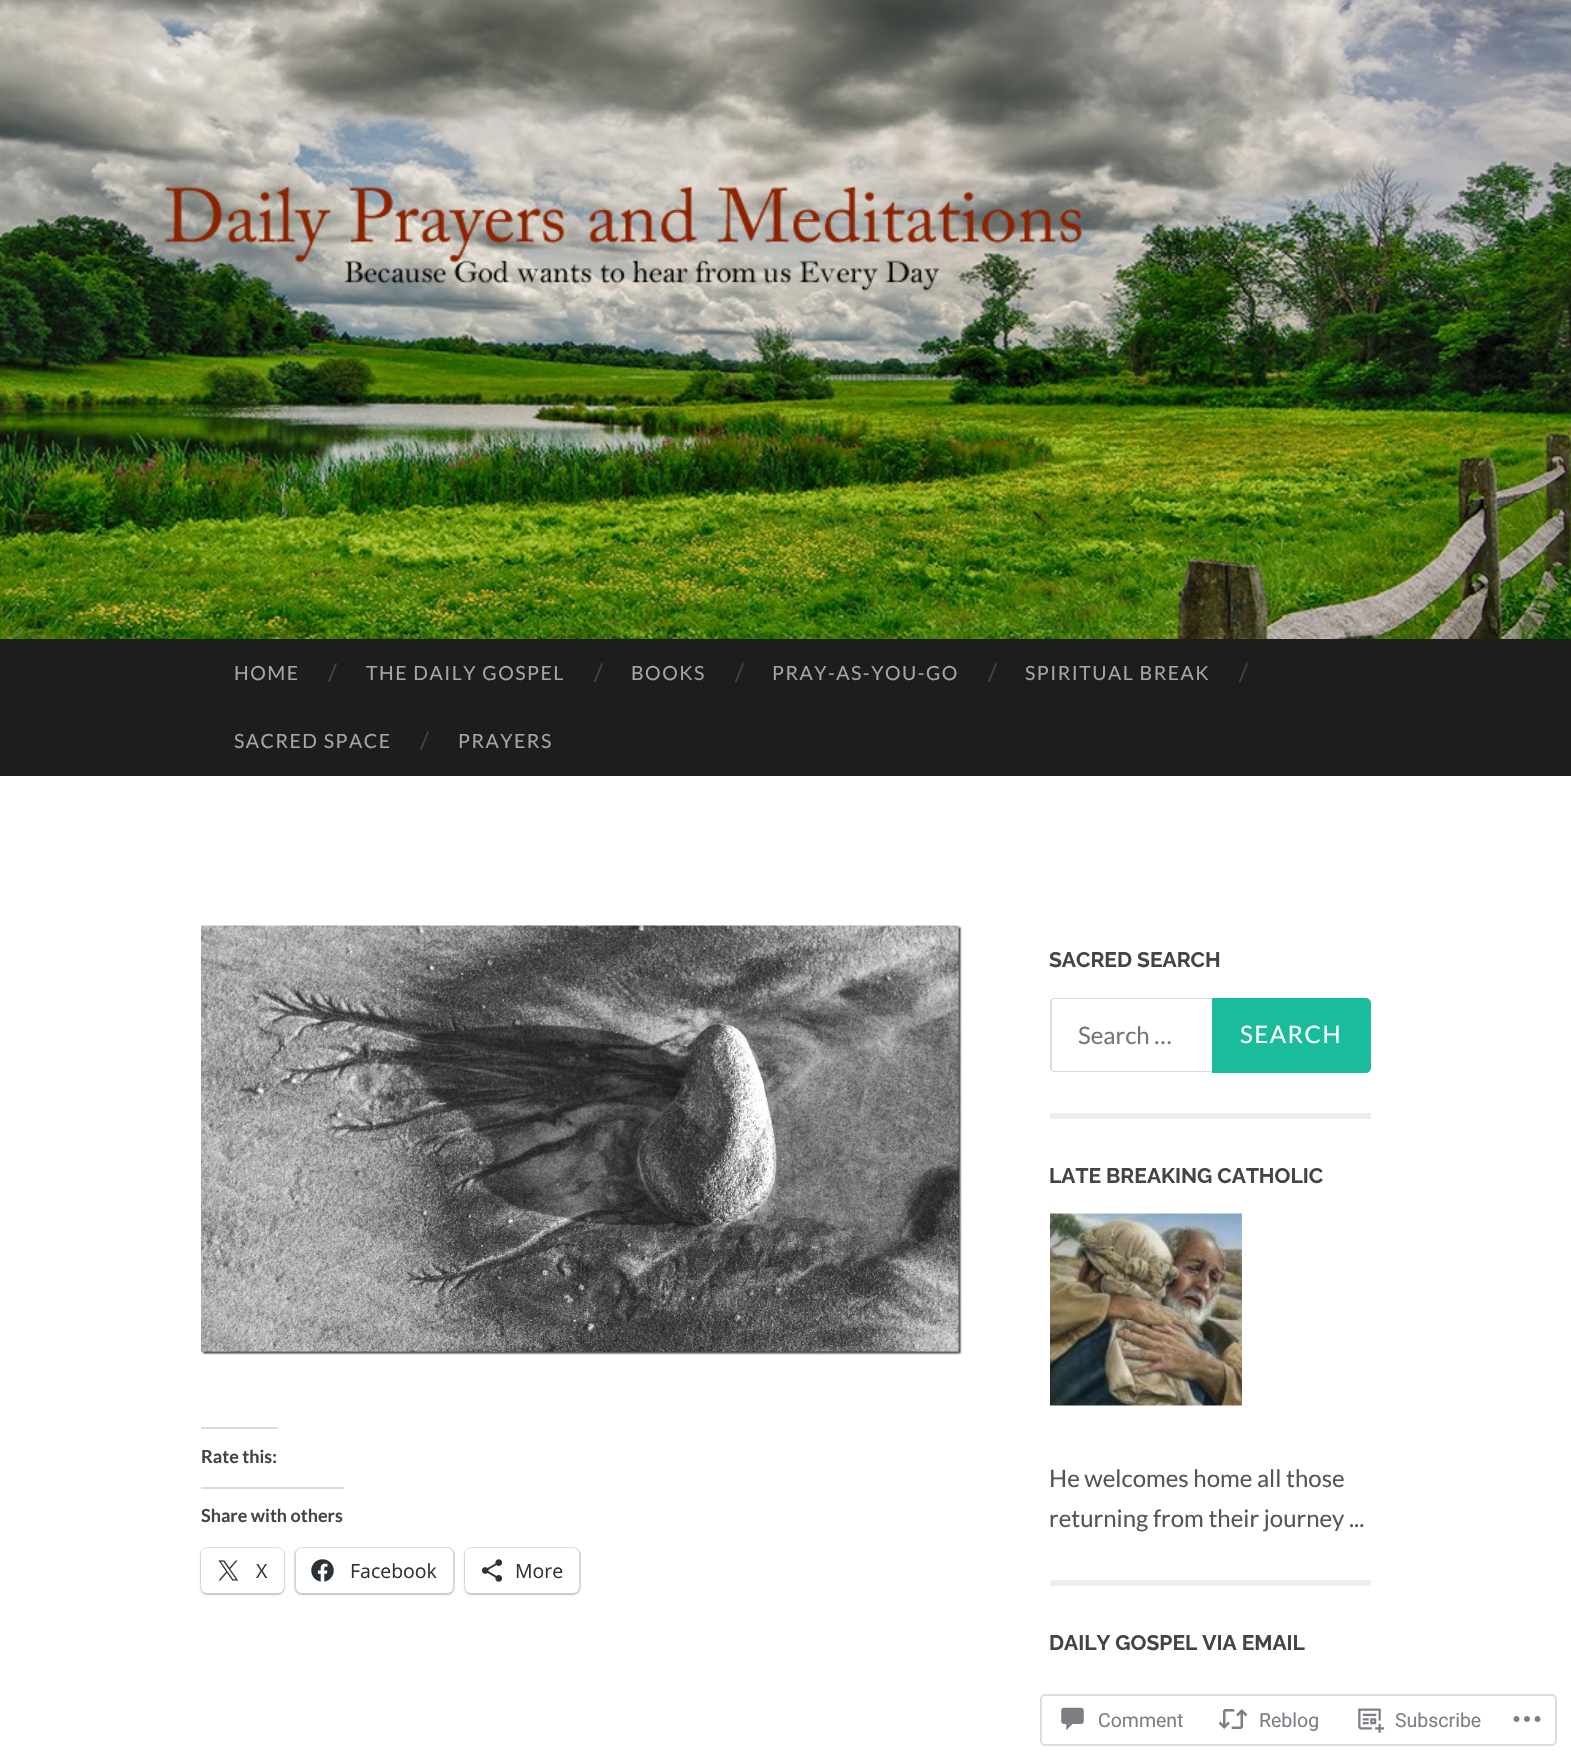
void draw(SkCanvas* canvas) {
  SkPaint paint;
  paint.setAntiAlias(true);
  auto face = [&](const char* family, int weight, float size, bool italic = false) {
    SkFontStyle style(weight, SkFontStyle::kNormal_Width,
      italic ? SkFontStyle::kItalic_Slant : SkFontStyle::kUpright_Slant);
    SkFont result(fontMgr->matchFamilyStyle(family, style), size);
    result.setSubpixel(true);
    return result;
  };
  auto writeSpaced = [&](const char* s, float x, float y, const SkFont& font, const SkPaint& ink, float letter, float word) {
    std::vector<SkGlyphID> glyphs(font.countText(s, strlen(s), SkTextEncoding::kUTF8));
    std::vector<float> xs(glyphs.size());
    font.textToGlyphs(s, strlen(s), SkTextEncoding::kUTF8, glyphs);
    font.getXPos(glyphs, xs, x);
    float extra = 0;
    for (size_t i = 0; i < glyphs.size(); i++) {
      xs[i] += extra;
      extra += letter + word * (glyphs[i] == font.unicharToGlyph(' '));
    }
    canvas->drawTextBlob(SkTextBlob::MakeFromPosHGlyphs(glyphs, xs, y, font), 0, 0, ink);
  };
  auto paste = [&](const char* path, float x, float y, float w, float h) {
    auto image = SkImages::DeferredFromEncodedData(SkData::MakeFromFileName(path));
    canvas->drawImageRect(image, SkRect::MakeXYWH(x, y, w, h), SkSamplingOptions());
  };
  auto shape = [&](const char* data, bool evenOdd = false) {
    SkPath result = *SkParsePath::FromSVGString(data);
    if (evenOdd) result.setFillType(SkPathFillType::kEvenOdd);
    return result;
  };
  canvas->clear(0xffffffff);
  paste("img/1.png", 0, 0, 1571, 639);
  paint.setColor(0xff1d1d1d);
  canvas->drawRect(SkRect::MakeXYWH(0, 639, 1571, 137), paint);
  paste("img/2.png", 201, 925, 761, 430);
  paint.setColor(0xffdcdcde);
  canvas->drawRect(SkRect::MakeXYWH(201, 1427, 77, 2), paint);
  canvas->drawRect(SkRect::MakeXYWH(201, 1487, 143, 2), paint);
  paint.setStroke(true);
  paint.setStrokeWidth(2);
  paint.setColor(0xffe0e0e0);
  canvas->drawRoundRect(SkRect::MakeXYWH(201, 1548, 83, 46), 7, 7, paint);
  paint.setStroke(false);
  paint.setColor(0x1f000000);
  paint.setMaskFilter(SkMaskFilter::MakeBlur(kNormal_SkBlurStyle, 1.5f));
  canvas->drawRoundRect(SkRect::MakeXYWH(201, 1550, 83, 45), 6, 6, paint);
  paint.setMaskFilter(nullptr);
  paint.setColor(0xffffffff);
  canvas->drawRoundRect(SkRect::MakeXYWH(201, 1548, 83, 45), 6, 6, paint);
  paste("img/3.png", 218, 1560, 21, 21);
  paint.setStroke(true);
  paint.setColor(0xffe0e0e0);
  canvas->drawRoundRect(SkRect::MakeXYWH(295, 1548, 159, 46), 7, 7, paint);
  paint.setStroke(false);
  paint.setColor(0x1f000000);
  paint.setMaskFilter(SkMaskFilter::MakeBlur(kNormal_SkBlurStyle, 1.5f));
  canvas->drawRoundRect(SkRect::MakeXYWH(296, 1550, 157, 45), 6, 6, paint);
  paint.setMaskFilter(nullptr);
  paint.setColor(0xffffffff);
  canvas->drawRoundRect(SkRect::MakeXYWH(296, 1548, 157, 45), 6, 6, paint);
  paste("img/4.png", 311, 1559, 23, 23);
  paint.setStroke(true);
  paint.setColor(0xffe0e0e0);
  canvas->drawRoundRect(SkRect::MakeXYWH(465, 1548, 115, 46), 7, 7, paint);
  paint.setStroke(false);
  paint.setColor(0x1f000000);
  paint.setMaskFilter(SkMaskFilter::MakeBlur(kNormal_SkBlurStyle, 1.5f));
  canvas->drawRoundRect(SkRect::MakeXYWH(465, 1550, 114, 45), 6, 6, paint);
  paint.setMaskFilter(nullptr);
  paint.setColor(0xffffffff);
  canvas->drawRoundRect(SkRect::MakeXYWH(465, 1548, 114, 45), 6, 6, paint);
  paste("img/5.png", 481, 1559, 22, 23);
  paint.setColor(0xffeeeeee);
  canvas->drawRect(SkRect::MakeXYWH(1050, 1113, 321, 6), paint);
  paint.setColor(0xffdddddd);
  canvas->drawPath(shape("M1054 998H1368V1072H1054C1052 1072 1050 1070 1050 1068V1002C1050 1000 1052 998 1054 998ZM1054 999H1368V1071H1054C1053 1071 1052 1070 1052 1068V1002C1052 1000 1053 999 1054 999Z", true), paint);
  paint.setColor(0xff1abc9c);
  canvas->drawPath(shape("M1213 999H1366C1368 999 1370 1001 1370 1003V1068C1370 1070 1368 1072 1366 1072H1213Z"), paint);
  paint.setStroke(true);
  canvas->drawPath(shape("M1213 999H1366C1368 999 1370 1001 1370 1003V1068C1370 1070 1368 1072 1366 1072H1213Z"), paint);
  paint.setStroke(false);
  paint.setColor(0xffeeeeee);
  canvas->drawRect(SkRect::MakeXYWH(1050, 1580, 321, 6), paint);
  paste("img/6.png", 1050, 1213, 192, 193);
  paint.setStroke(true);
  paint.setColor(0xfadcdcde);
  canvas->drawRoundRect(SkRect::MakeXYWH(1041, 1695, 515, 50), 4, 4, paint);
  paste("img/7.png", 1061, 1707, 23, 24);
  paste("img/8.png", 1218, 1709, 30, 20);
  paste("img/9.png", 1358, 1708, 27, 25);
  paste("img/10.png", 1513, 1716, 28, 6);
  auto f0 = face("Lato", 400, 19.5f);
  paint.setStroke(false);
  paint.setColor(0xffa5a5a5);
  writeSpaced("HOME", 234, 680, f0, paint, 1.5f, 0);
  auto f1 = face("Lato", 400, 24);
  paint.setColor(0xff444444);
  canvas->drawString("/", 328, 681, f1, paint);
  paint.setColor(0xffa5a5a5);
  writeSpaced("THE DAILY GOSPEL", 366, 680, f0, paint, 1.5f, 0);
  paint.setColor(0xff444444);
  canvas->drawString("/", 594, 681, f1, paint);
  paint.setColor(0xffa5a5a5);
  writeSpaced("BOOKS", 631, 680, f0, paint, 1.5f, 0);
  paint.setColor(0xff444444);
  canvas->drawString("/", 735, 681, f1, paint);
  paint.setColor(0xffa5a5a5);
  writeSpaced("PRAY-AS-YOU-GO", 772, 680, f0, paint, 1.5f, 0);
  paint.setColor(0xff444444);
  canvas->drawString("/", 988, 681, f1, paint);
  paint.setColor(0xffa5a5a5);
  writeSpaced("SPIRITUAL BREAK", 1025, 680, f0, paint, 1.5f, 0);
  paint.setColor(0xff444444);
  canvas->drawString("/", 1239, 681, f1, paint);
  paint.setColor(0xffa5a5a5);
  writeSpaced("SACRED SPACE", 234, 748, f0, paint, 1.5f, 0);
  paint.setColor(0xff444444);
  canvas->drawString("/", 420, 749, f1, paint);
  paint.setColor(0xffa5a5a5);
  writeSpaced("PRAYERS", 458, 748, f0, paint, 1.5f, 0);
  auto f2 = face("Lato", 700, 18);
  paint.setColor(0xff444444);
  canvas->drawString("Rate this:", 201, 1463, f2, paint);
  canvas->drawString("Share with others", 201, 1522, f2, paint);
  auto f3 = face("Open Sans", 400, 19.5f);
  paint.setColor(0xff2c3338);
  {
    const struct { const char* s; float x, y; } items[] = {
      {"X", 256, 1578},
      {"Facebook", 350, 1578},
      {"More", 515, 1578},
    };
    for (auto [s, x, y] : items) {
      canvas->drawString(s, x, y, f3, paint);
    }
  }
  auto f4 = face("Raleway", 700, 21);
  paint.setColor(0xff444444);
  canvas->drawString("SACRED SEARCH", 1049, 967, f4, paint);
  paint.setColor(0xff757575);
  canvas->drawString("Search …", 1078, 1044, f1, paint);
  paint.setColor(0xffffffff);
  writeSpaced("SEARCH", 1240, 1043, f1, paint, 1.5f, 0);
  paint.setColor(0xff444444);
  canvas->drawString("LATE BREAKING CATHOLIC", 1049, 1183, f4, paint);
  paint.setColor(0xff555555);
  canvas->drawString("He welcomes home all those", 1049, 1487, f1, paint);
  canvas->drawString("returning from their journey ...", 1049, 1527, f1, paint);
  paint.setColor(0xff444444);
  canvas->drawString("DAILY GOSPEL VIA EMAIL", 1049, 1650, f4, paint);
  auto f5 = face("Roboto", 400, 19.5f);
  paint.setColor(0xff7b7f85);
  {
    const struct { const char* s; float x, y; } items[] = {
      {"Comment", 1098, 1727},
      {"Reblog", 1259, 1727},
      {"Subscribe", 1395, 1727},
    };
    for (auto [s, x, y] : items) {
      canvas->drawString(s, x, y, f5, paint);
    }
  }
}
